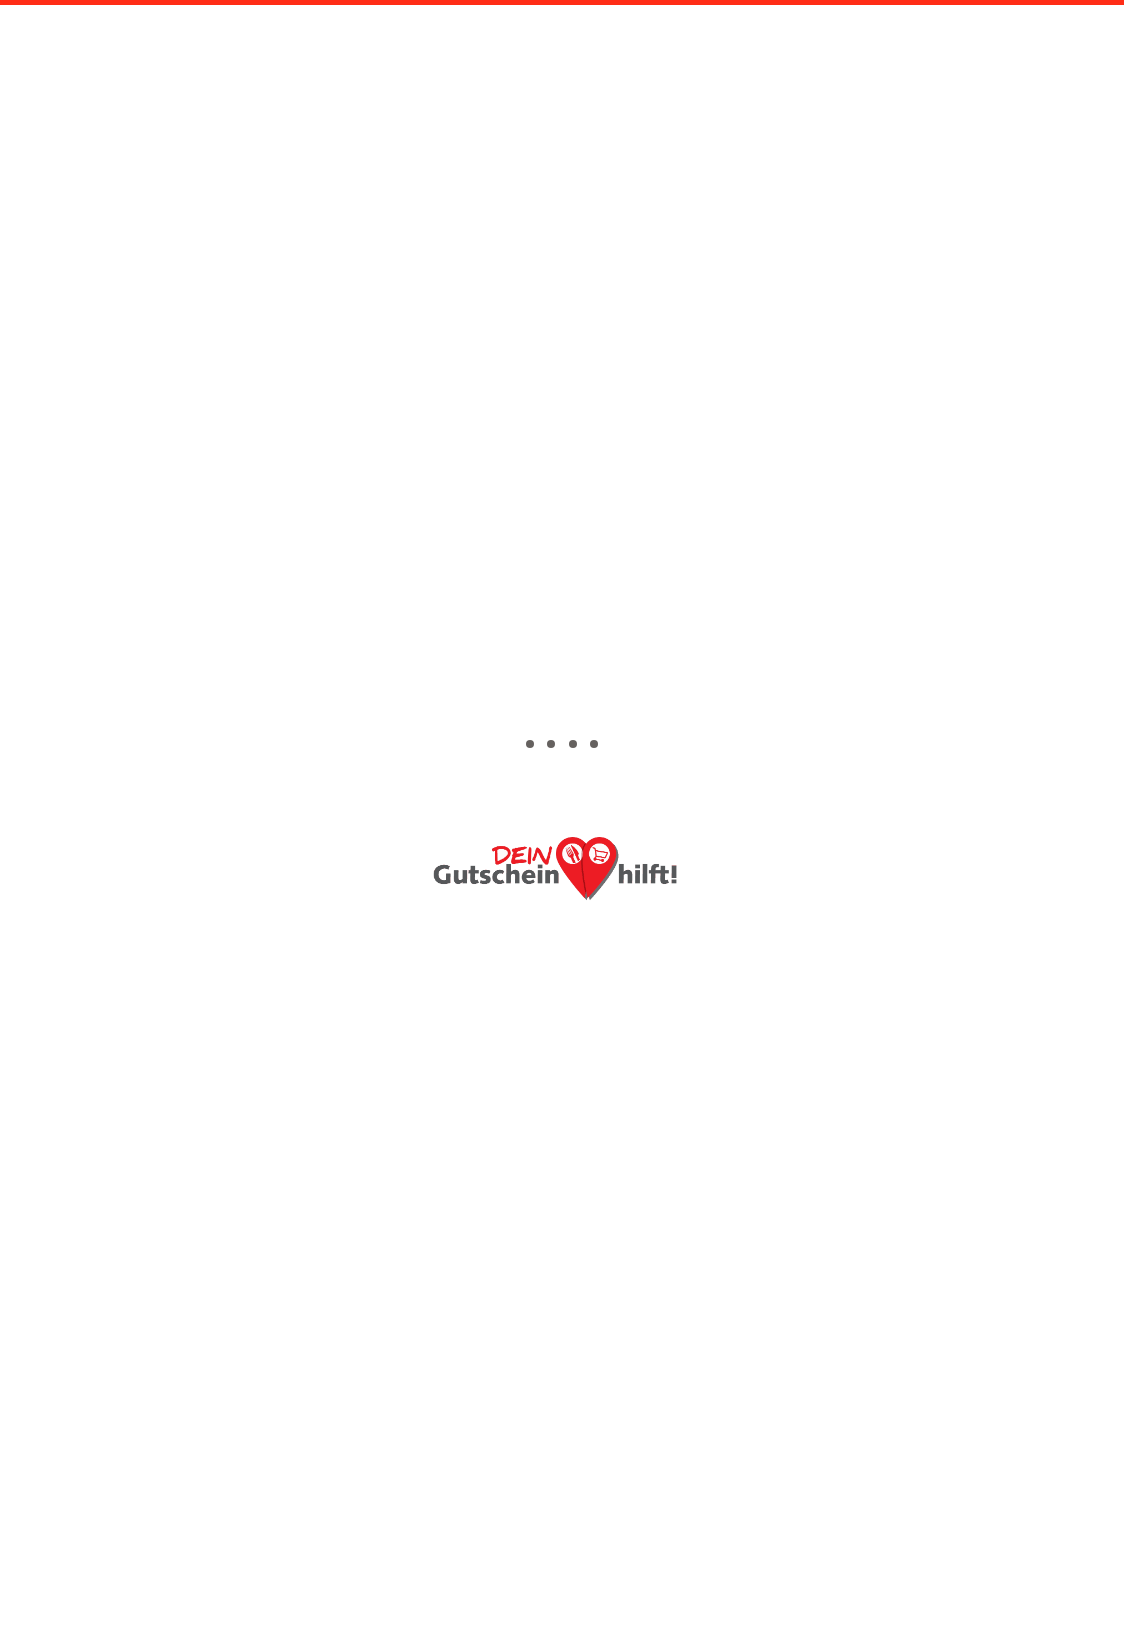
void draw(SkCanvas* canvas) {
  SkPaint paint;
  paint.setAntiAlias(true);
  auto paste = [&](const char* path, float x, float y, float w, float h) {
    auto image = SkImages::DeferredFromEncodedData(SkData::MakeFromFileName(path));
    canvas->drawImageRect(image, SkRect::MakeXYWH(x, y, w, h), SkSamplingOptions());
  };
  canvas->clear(0xffffffff);
  paint.setColor(0xffff2d16);
  canvas->drawRect(SkRect::MakeXYWH(0, 0, 1124, 5), paint);
  paint.setColor(0xff65615f);
  canvas->drawCircle(530, 744, 4, paint);
  canvas->drawCircle(551, 744, 4, paint);
  canvas->drawCircle(573, 744, 4, paint);
  canvas->drawCircle(594, 744, 4, paint);
  paste("img/1.png", 433, 837, 244, 64);
}
